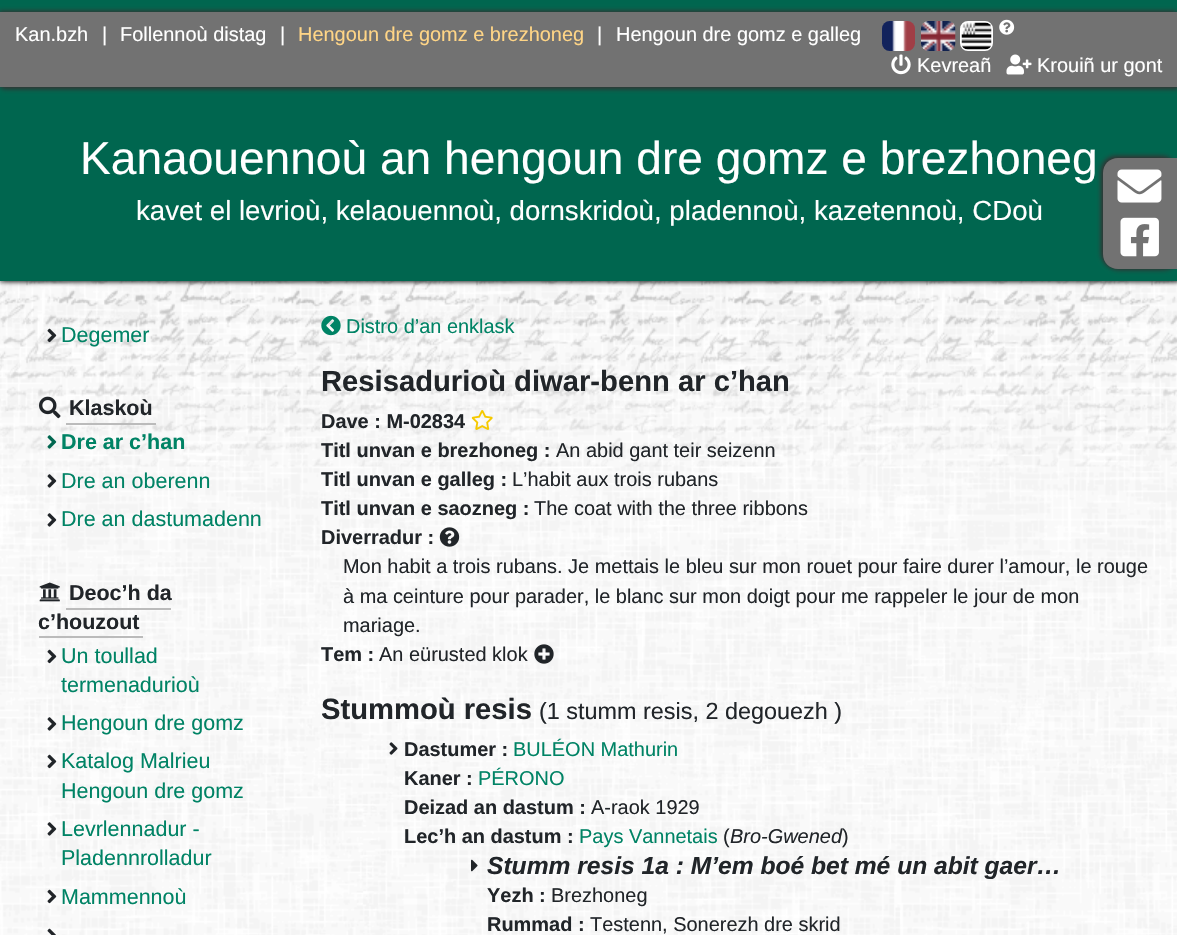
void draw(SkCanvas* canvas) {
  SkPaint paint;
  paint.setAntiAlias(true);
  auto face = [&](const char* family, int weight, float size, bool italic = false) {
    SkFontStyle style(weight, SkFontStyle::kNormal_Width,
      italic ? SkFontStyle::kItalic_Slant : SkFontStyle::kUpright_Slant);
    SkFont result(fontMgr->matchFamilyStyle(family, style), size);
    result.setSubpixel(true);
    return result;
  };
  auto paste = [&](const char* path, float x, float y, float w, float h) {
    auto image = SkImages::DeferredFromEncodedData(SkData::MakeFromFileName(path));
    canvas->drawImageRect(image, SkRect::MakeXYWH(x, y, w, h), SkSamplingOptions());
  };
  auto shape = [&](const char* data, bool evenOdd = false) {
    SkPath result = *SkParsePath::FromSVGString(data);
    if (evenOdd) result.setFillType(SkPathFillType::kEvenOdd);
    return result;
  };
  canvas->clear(0xffffffff);
  paste("img/1.png", 0, 281, 1177, 654);
  paste("img/2.png", 0, 281, 1177, 186);
  paint.setColor(0xff00664f);
  canvas->drawRect(SkRect::MakeXYWH(0, 0, 1177, 281), paint);
  paint.setColor(0xff333333);
  paint.setMaskFilter(SkMaskFilter::MakeBlur(kNormal_SkBlurStyle, 2.5f));
  canvas->drawRect(SkRect::MakeXYWH(-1, 11, 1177, 75), paint);
  paint.setMaskFilter(nullptr);
  paint.setMaskFilter(SkMaskFilter::MakeBlur(kNormal_SkBlurStyle, 2.5f));
  canvas->drawRect(SkRect::MakeXYWH(2, 14, 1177, 75), paint);
  paint.setMaskFilter(nullptr);
  canvas->save();
  canvas->clipPath(shape("M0 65H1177V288H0ZM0 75H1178V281H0Z", true), true);
  paint.setMaskFilter(SkMaskFilter::MakeBlur(kNormal_SkBlurStyle, 2.5f));
  canvas->drawRect(SkRect::MakeXYWH(-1, 74, 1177, 205), paint);
  paint.setMaskFilter(nullptr);
  canvas->restore();
  canvas->save();
  canvas->clipPath(shape("M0 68H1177V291H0ZM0 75H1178V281H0Z", true), true);
  paint.setMaskFilter(SkMaskFilter::MakeBlur(kNormal_SkBlurStyle, 2.5f));
  canvas->drawRect(SkRect::MakeXYWH(2, 77, 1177, 205), paint);
  paint.setMaskFilter(nullptr);
  canvas->restore();
  paint.setColor(0xff727272);
  canvas->drawRect(SkRect::MakeXYWH(0, 12, 1177, 75), paint);
  paste("img/3.png", 882, 21, 33, 30);
  paste("img/4.png", 921, 21, 35, 30);
  paint.setStroke(true);
  paint.setStrokeWidth(2);
  paint.setColor(0xffffffff);
  canvas->drawRoundRect(SkRect::MakeXYWH(961, 22, 31, 28), 7, 7, paint);
  paste("img/5.png", 961, 22, 31, 28);
  paste("img/6.png", 999, 19, 16, 16);
  paste("img/7.png", 891, 54, 20, 21);
  paste("img/8.png", 1006, 54, 26, 21);
  paste("img/9.png", 47, 328, 10, 15);
  paste("img/10.png", 39, 396, 22, 23);
  paint.setStroke(false);
  paint.setColor(0xffbbbbbb);
  canvas->drawRect(SkRect::MakeXYWH(66, 423, 90, 2), paint);
  paste("img/11.png", 47, 435, 10, 14);
  paste("img/12.png", 47, 474, 10, 14);
  paste("img/13.png", 47, 513, 10, 14);
  paste("img/14.png", 39, 582, 21, 20);
  canvas->drawRect(SkRect::MakeXYWH(66, 608, 105, 2), paint);
  canvas->drawRect(SkRect::MakeXYWH(39, 636, 104, 2), paint);
  paste("img/15.png", 47, 649, 10, 15);
  paste("img/16.png", 47, 717, 10, 14);
  paste("img/17.png", 47, 754, 10, 15);
  paste("img/18.png", 47, 822, 10, 14);
  paste("img/19.png", 47, 889, 10, 15);
  paste("img/20.png", 47, 928, 9, 7);
  paste("img/21.png", 321, 315, 20, 21);
  paste("img/22.png", 471, 410, 22, 20);
  paste("img/23.png", 439, 527, 21, 20);
  paste("img/24.png", 534, 644, 20, 20);
  paste("img/25.png", 389, 742, 9, 13);
  paste("img/26.png", 471, 859, 7, 13);
  paint.setColor(0xff333333);
  paint.setMaskFilter(SkMaskFilter::MakeBlur(kNormal_SkBlurStyle, 2.5f));
  canvas->drawRoundRect(SkRect::MakeXYWH(1101, 156, 75, 111), 15, 15, paint);
  paint.setMaskFilter(nullptr);
  paint.setMaskFilter(SkMaskFilter::MakeBlur(kNormal_SkBlurStyle, 2.5f));
  canvas->drawRoundRect(SkRect::MakeXYWH(1104, 159, 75, 111), 15, 15, paint);
  paint.setMaskFilter(nullptr);
  paint.setColor(0xff727272);
  canvas->drawPath(shape("M1118 158H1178V269H1118C1109.5 269 1103 262.5 1103 254V173C1103 164.5 1109.5 158 1118 158Z"), paint);
  paste("img/27.png", 1117, 169, 45, 34);
  paste("img/28.png", 1120, 217, 39, 40);
  auto f0 = face("Liberation Sans", 400, 19.95f);
  paint.setColor(0xffffffff);
  {
    const struct { const char* s; float x, y; } items[] = {
      {"Kan.bzh", 15, 41},
      {"|", 102, 41},
      {"Follennoù distag", 120, 41},
      {"|", 280, 41},
    };
    for (auto [s, x, y] : items) {
      canvas->drawString(s, x, y, f0, paint);
    }
  }
  paint.setColor(0xffffd586);
  canvas->drawString("Hengoun dre gomz e brezhoneg", 298, 41, f0, paint);
  paint.setColor(0xffffffff);
  {
    const struct { const char* s; float x, y; } items[] = {
      {"|", 597, 41},
      {"Hengoun dre gomz e galleg", 616, 41},
      {"Kevreañ", 917, 72},
      {"Krouiñ ur gont", 1037, 72},
    };
    for (auto [s, x, y] : items) {
      canvas->drawString(s, x, y, f0, paint);
    }
  }
  auto f1 = face("Liberation Sans", 400, 46.1f);
  canvas->drawString("Kanaouennoù an hengoun dre gomz e brezhoneg", 80, 174, f1, paint);
  auto f2 = face("Liberation Sans", 400, 27.65f);
  canvas->drawString("kavet el levrioù, kelaouennoù, dornskridoù, pladennoù, kazetennoù, CDoù", 136, 220, f2, paint);
  auto f3 = face("Liberation Sans", 400, 21.5f);
  paint.setColor(0xff008365);
  canvas->drawString("Degemer", 61, 342, f3, paint);
  auto f4 = face("Liberation Sans", 700, 21.5f);
  paint.setColor(0xff212529);
  canvas->drawString("Klaskoù", 69, 415, f4, paint);
  paint.setColor(0xff008365);
  canvas->drawString("Dre ar c’han", 61, 449, f4, paint);
  canvas->drawString("Dre an oberenn", 61, 488, f3, paint);
  canvas->drawString("Dre an dastumadenn", 61, 526, f3, paint);
  paint.setColor(0xff212529);
  canvas->drawString("Deoc’h da", 69, 600, f4, paint);
  canvas->drawString("c’houzout", 38, 629, f4, paint);
  paint.setColor(0xff008365);
  {
    const struct { const char* s; float x, y; } items[] = {
      {"Un toullad", 61, 663},
      {"termenadurioù", 61, 692},
      {"Hengoun dre gomz", 61, 730},
      {"Katalog Malrieu", 61, 768},
      {"Hengoun dre gomz", 61, 798},
      {"Levrlennadur -", 61, 836},
      {"Pladennrolladur", 61, 865},
      {"Mammennoù", 61, 904},
    };
    for (auto [s, x, y] : items) {
      canvas->drawString(s, x, y, f3, paint);
    }
  }
  canvas->drawString("Distro d’an enklask", 346, 333, f0, paint);
  auto f5 = face("Liberation Sans", 700, 29.2f);
  paint.setColor(0xff212529);
  canvas->drawString("Resisadurioù diwar-benn ar c’han", 321, 391, f5, paint);
  auto f6 = face("Liberation Sans", 700, 19.95f);
  canvas->drawString("Dave : M-02834", 321, 428, f6, paint);
  canvas->save();
  canvas->clipRect(SkRect::MakeXYWH(321, 312, 834, 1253));
  canvas->drawString("Titl unvan e brezhoneg :", 321, 457, f6, paint);
  canvas->restore();
  canvas->drawString("An abid gant teir seizenn", 556, 457, f0, paint);
  canvas->save();
  canvas->clipRect(SkRect::MakeXYWH(321, 312, 834, 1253));
  canvas->drawString("Titl unvan e galleg :", 321, 486, f6, paint);
  canvas->restore();
  canvas->drawString("L’habit aux trois rubans", 512, 486, f0, paint);
  canvas->save();
  canvas->clipRect(SkRect::MakeXYWH(321, 312, 834, 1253));
  canvas->drawString("Titl unvan e saozneg :", 321, 515, f6, paint);
  canvas->restore();
  canvas->drawString("The coat with the three ribbons", 534, 515, f0, paint);
  canvas->drawString("Diverradur :", 321, 544, f6, paint);
  {
    const struct { const char* s; float x, y; } items[] = {
      {"Mon habit a trois rubans. Je mettais le bleu sur mon rouet pour faire durer l’amour, le rouge", 343, 573},
      {"à ma ceinture pour parader, le blanc sur mon doigt pour me rappeler le jour de mon", 343, 603},
      {"mariage.", 343, 632},
    };
    for (auto [s, x, y] : items) {
      canvas->drawString(s, x, y, f0, paint);
    }
  }
  canvas->save();
  canvas->clipRect(SkRect::MakeXYWH(321, 312, 834, 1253));
  canvas->drawString("Tem :", 321, 661, f6, paint);
  canvas->restore();
  canvas->drawString("An eürusted klok", 379, 661, f0, paint);
  canvas->drawString("Stummoù resis", 321, 719, f5, paint);
  auto f7 = face("Liberation Sans", 400, 23.4f);
  canvas->drawString("(1 stumm resis, 2 degouezh )", 539, 719, f7, paint);
  canvas->drawString("Dastumer :", 404, 756, f6, paint);
  paint.setColor(0xff008365);
  canvas->drawString("BULÉON Mathurin", 513, 756, f0, paint);
  paint.setColor(0xff212529);
  canvas->drawString("Kaner :", 404, 785, f6, paint);
  paint.setColor(0xff008365);
  canvas->drawString("PÉRONO", 478, 785, f0, paint);
  paint.setColor(0xff212529);
  canvas->drawString("Deizad an dastum :", 404, 814, f6, paint);
  canvas->drawString("A-raok 1929", 591, 814, f0, paint);
  canvas->drawString("Lec’h an dastum :", 404, 843, f6, paint);
  paint.setColor(0xff008365);
  canvas->drawString("Pays Vannetais", 579, 843, f0, paint);
  paint.setColor(0xff212529);
  canvas->drawString("(", 723, 843, f0, paint);
  auto f8 = face("Liberation Sans", 400, 19.95f, true);
  canvas->drawString("Bro-Gwened", 730, 843, f8, paint);
  canvas->drawString(")", 842, 843, f0, paint);
  auto f9 = face("Liberation Sans", 700, 24.6f, true);
  canvas->drawString("Stumm resis 1a : M’em boé bet mé un abit gaer…", 487, 874, f9, paint);
  canvas->drawString("Yezh :", 487, 902, f6, paint);
  canvas->drawString("Brezhoneg", 551, 902, f0, paint);
  canvas->drawString("Rummad :", 487, 931, f6, paint);
  canvas->drawString("Testenn, Sonerezh dre skrid", 590, 931, f0, paint);
}
